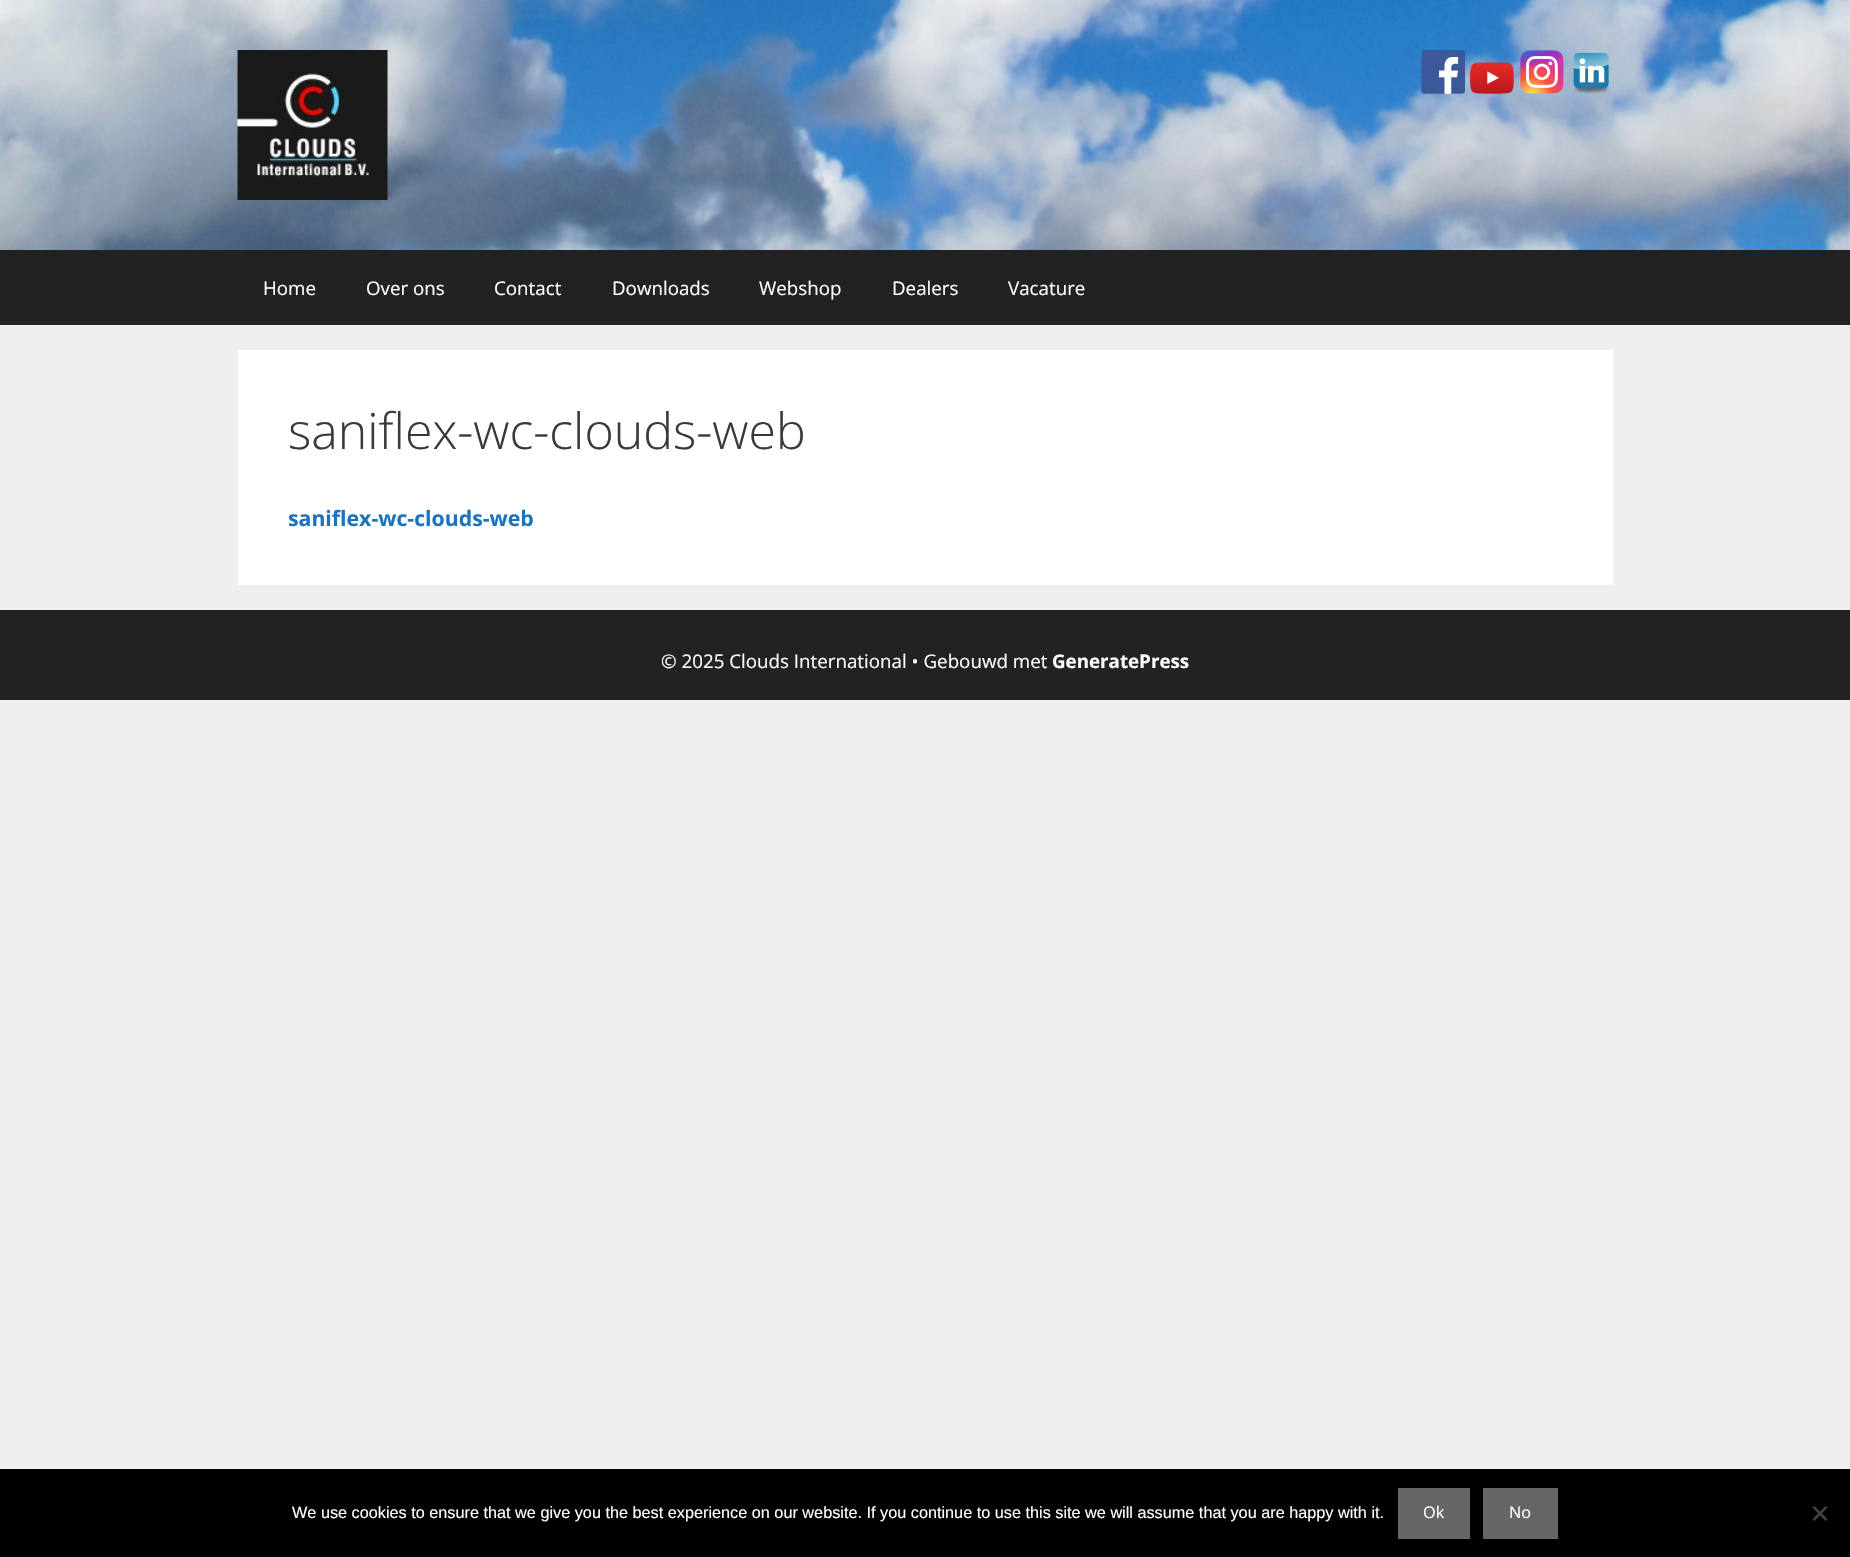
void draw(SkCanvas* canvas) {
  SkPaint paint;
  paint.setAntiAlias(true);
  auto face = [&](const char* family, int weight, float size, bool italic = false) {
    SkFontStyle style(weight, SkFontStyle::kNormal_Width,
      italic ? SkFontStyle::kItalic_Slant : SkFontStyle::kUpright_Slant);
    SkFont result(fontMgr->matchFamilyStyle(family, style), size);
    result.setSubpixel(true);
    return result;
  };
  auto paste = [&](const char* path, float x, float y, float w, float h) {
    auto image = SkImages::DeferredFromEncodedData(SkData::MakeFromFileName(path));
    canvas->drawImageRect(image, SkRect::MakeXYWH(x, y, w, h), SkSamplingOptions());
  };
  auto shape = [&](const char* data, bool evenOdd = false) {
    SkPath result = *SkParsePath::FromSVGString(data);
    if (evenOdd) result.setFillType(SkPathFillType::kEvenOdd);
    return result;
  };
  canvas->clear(0xffefefef);
  paste("img/1.png", 0, 0, 1850, 250);
  paste("img/2.png", 237, 50, 151, 150);
  paste("img/3.png", 1421, 50, 44, 44);
  paste("img/4.png", 1470, 62, 44, 32);
  paste("img/5.png", 1520, 50, 44, 44);
  paste("img/6.png", 1573, 52, 36, 42);
  {
    const struct { float x, y, w, h; SkColor color; } items[] = {
      {0, 250, 1850, 75, 0xff222222},
      {238, 350, 1375, 235, 0xffffffff},
      {0, 610, 1850, 90, 0xff222222},
      {0, 1469, 1850, 88, 0xff000000},
      {1398, 1488, 72, 51, 0xff666666},
      {1483, 1488, 75, 51, 0xff666666},
    };
    for (auto [x, y, w, h, color] : items) {
      paint.setColor(color);
      canvas->drawRect(SkRect::MakeXYWH(x, y, w, h), paint);
    }
  }
  paint.setColor(0xff404040);
  canvas->drawPath(shape("M1825.5 1506L1827.5 1507.5L1814.5 1521L1812.5 1519Z"), paint);
  canvas->drawPath(shape("M1812.5 1507.5L1814.5 1506L1827.5 1519L1825.5 1521Z"), paint);
  auto f0 = face("Open Sans", 400, 18.75f);
  paint.setColor(0xffffffff);
  {
    const struct { const char* s; float x, y; } items[] = {
      {"Home", 263, 295},
      {"Over ons", 366, 295},
      {"Contact", 494, 295},
      {"Downloads", 612, 295},
      {"Webshop", 759, 295},
      {"Dealers", 892, 295},
      {"Vacature", 1008, 295},
    };
    for (auto [s, x, y] : items) {
      canvas->drawString(s, x, y, f0, paint);
    }
  }
  auto f1 = face("Open Sans", 300, 50);
  paint.setColor(0xff3a3a3a);
  canvas->drawString("saniflex-wc-clouds-web", 288, 449, f1, paint);
  auto f2 = face("Open Sans", 700, 21.25f);
  paint.setColor(0xff1e73be);
  canvas->drawString("saniflex-wc-clouds-web", 288, 526, f2, paint);
  paint.setColor(0xffffffff);
  canvas->drawString("© 2025 Clouds International • Gebouwd met", 661, 668, f0, paint);
  auto f3 = face("Open Sans", 700, 18.75f);
  canvas->drawString("GeneratePress", 1052, 668, f3, paint);
  auto f4 = face("Liberation Sans", 400, 16.25f);
  canvas->drawString("We use cookies to ensure that we give you the best experience on our website. If you continue to use this site we will assume that you are happy with it.", 292, 1518, f4, paint);
  auto f5 = face("Open Sans", 400, 16.25f);
  canvas->drawString("Ok", 1423, 1518, f5, paint);
  canvas->drawString("No", 1509, 1518, f5, paint);
}
